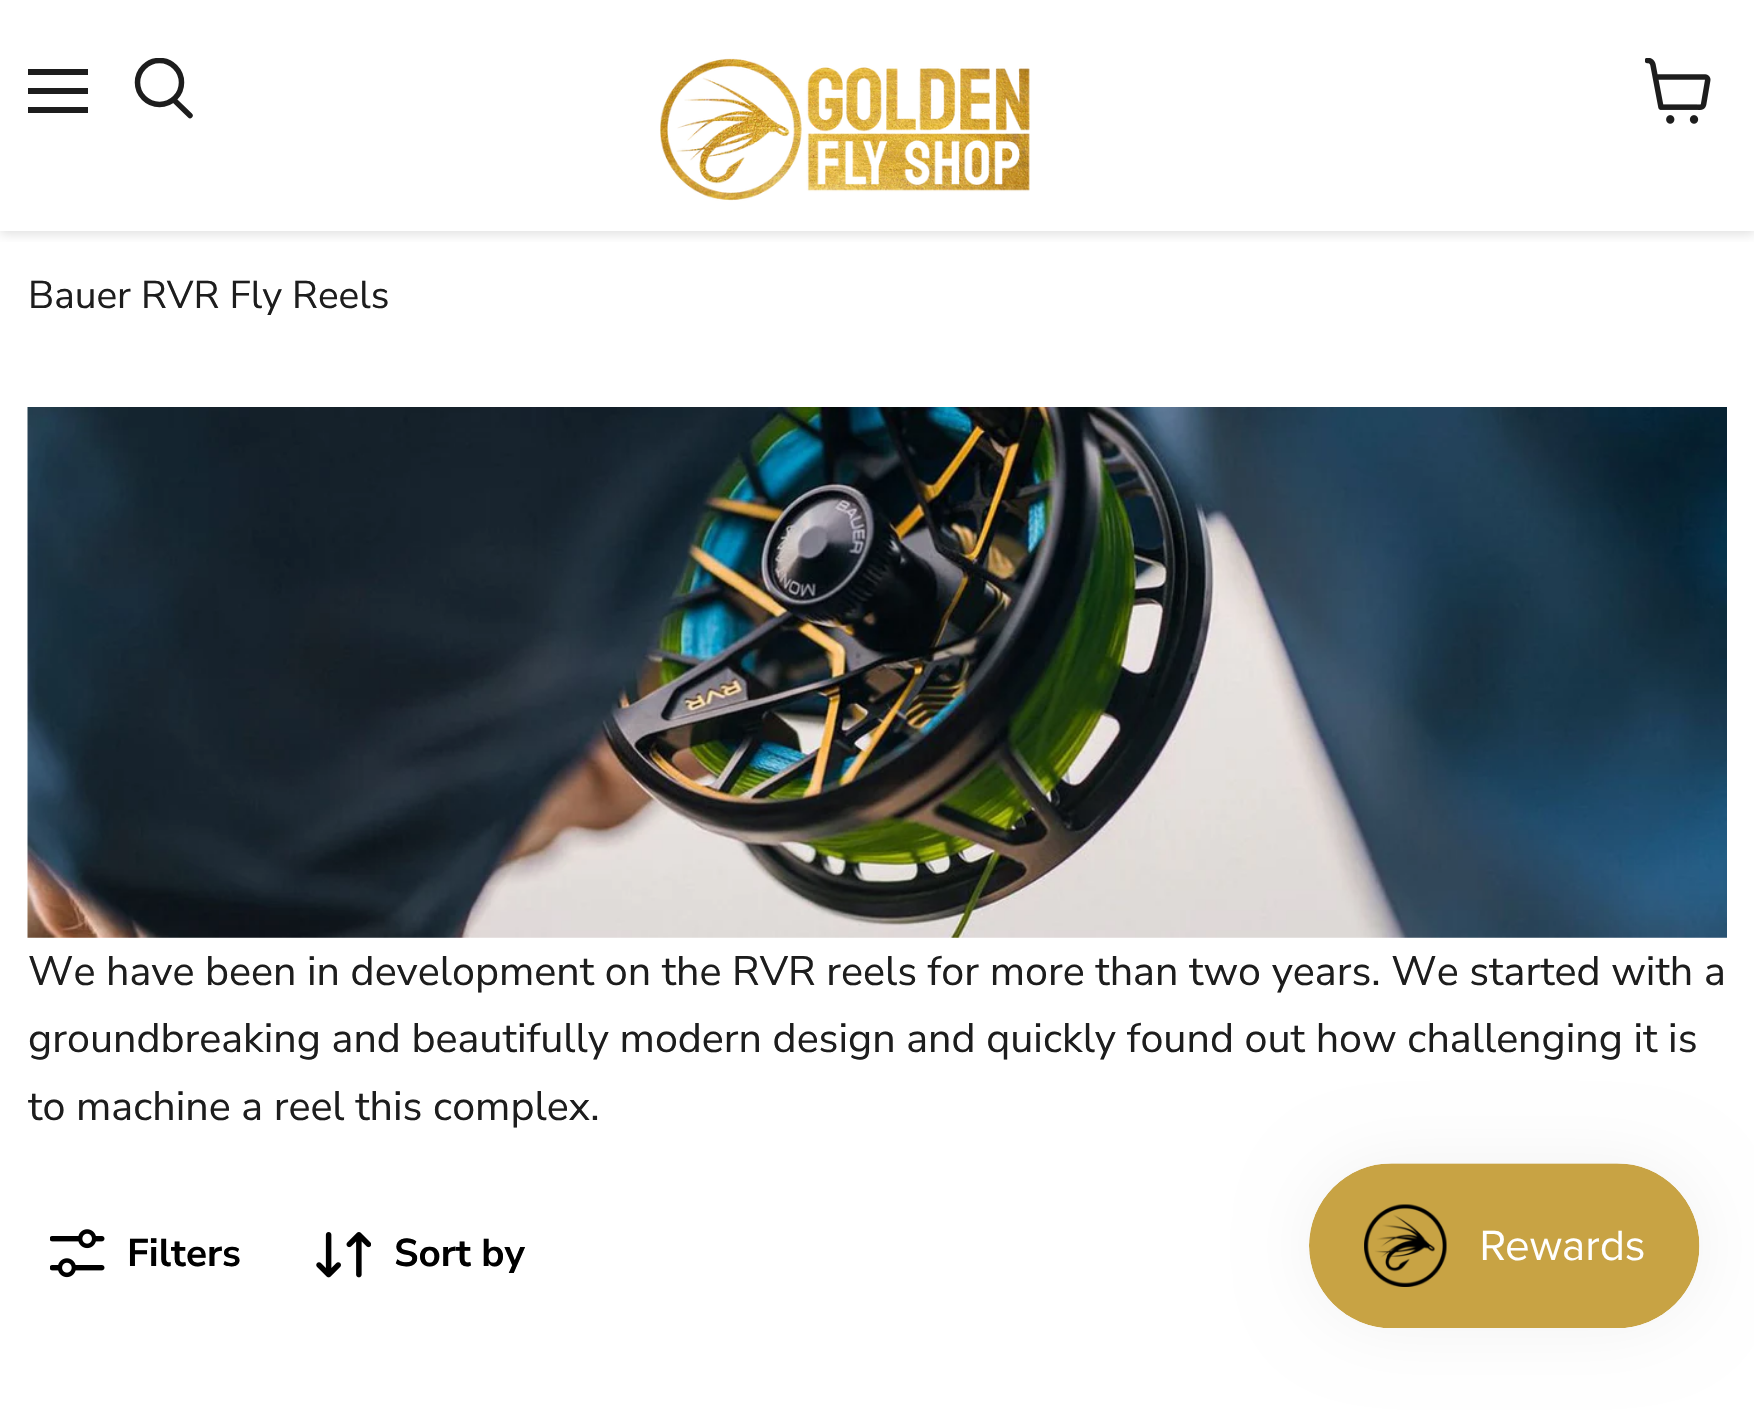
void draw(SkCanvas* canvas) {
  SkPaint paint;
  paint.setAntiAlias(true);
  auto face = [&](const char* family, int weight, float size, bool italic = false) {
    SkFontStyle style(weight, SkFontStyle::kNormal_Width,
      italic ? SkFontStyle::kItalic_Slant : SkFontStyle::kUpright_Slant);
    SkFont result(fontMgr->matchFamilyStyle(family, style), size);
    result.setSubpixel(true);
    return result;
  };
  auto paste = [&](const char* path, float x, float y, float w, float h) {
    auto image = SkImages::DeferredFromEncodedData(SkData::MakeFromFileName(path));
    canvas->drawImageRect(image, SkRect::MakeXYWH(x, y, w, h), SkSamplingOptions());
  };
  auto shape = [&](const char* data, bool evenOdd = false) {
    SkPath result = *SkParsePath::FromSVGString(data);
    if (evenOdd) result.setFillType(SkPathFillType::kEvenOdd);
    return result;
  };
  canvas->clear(0xffffffff);
  canvas->save();
  canvas->clipRect(SkRect::MakeXYWH(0, 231, 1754, 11));
  paint.setColor(0x40808080);
  paint.setMaskFilter(SkMaskFilter::MakeBlur(kNormal_SkBlurStyle, 5.5f));
  canvas->drawRect(SkRect::MakeXYWH(0, 3, 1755, 231), paint);
  paint.setMaskFilter(nullptr);
  canvas->restore();
  {
    const struct { float x, y, w, h; SkColor color; } items[] = {
      {28, 69, 60, 6, 0xff1d1d1d},
      {28, 88, 60, 6, 0xff1d1d1d},
      {28, 107, 60, 6, 0xff1d1d1d},
    };
    for (auto [x, y, w, h, color] : items) {
      paint.setColor(color);
      canvas->drawRect(SkRect::MakeXYWH(x, y, w, h), paint);
    }
  }
  paint.setStroke(true);
  paint.setStrokeWidth(5.5f);
  paint.setStrokeCap(SkPaint::kRound_Cap);
  canvas->drawPath(shape("M190 115.5L174.5 100.5"), paint);
  canvas->save();
  canvas->clipRect(SkRect::MakeXYWH(132, 58, 63, 66));
  paint.setStrokeCap(SkPaint::kButt_Cap);
  canvas->drawCircle(159.5f, 82.5f, 22, paint);
  canvas->restore();
  paste("img/1.png", 660, 58, 370, 143);
  paste("img/2.png", 1645, 58, 66, 66);
  paste("img/3.png", 27, 407, 1700, 531);
  paste("img/4.png", 50, 1229, 55, 49);
  paste("img/5.png", 316, 1232, 55, 46);
  paste("img/6.png", 1693, 1275, 1, 1);
  paint.setStroke(false);
  paint.setColor(0x0d000000);
  paint.setMaskFilter(SkMaskFilter::MakeBlur(kNormal_SkBlurStyle, 34.5f));
  canvas->drawRoundRect(SkRect::MakeXYWH(1309, 1163, 391, 165), 82.5f, 82.5f, paint);
  paint.setMaskFilter(nullptr);
  paste("img/7.png", 1309, 1163, 391, 165);
  auto f0 = face("Nunito Sans", 400, 38.75f);
  paint.setColor(0xff1d1d1d);
  canvas->drawString("Bauer RVR Fly Reels", 28, 308, f0, paint);
  auto f1 = face("Nunito Sans", 400, 41.25f);
  {
    const struct { const char* s; float x, y; } items[] = {
      {"We have been in development on the RVR reels for more than two years. We started with a", 28, 985},
      {"groundbreaking and beautifully modern design and quickly found out how challenging it is", 28, 1052},
      {"to machine a reel this complex.", 28, 1120},
    };
    for (auto [s, x, y] : items) {
      canvas->drawString(s, x, y, f1, paint);
    }
  }
  auto f2 = face("Nunito Sans", 700, 38.75f);
  paint.setColor(0xff000000);
  canvas->drawString("Filters", 127, 1266, f2, paint);
  canvas->drawString("Sort by", 394, 1266, f2, paint);
}
